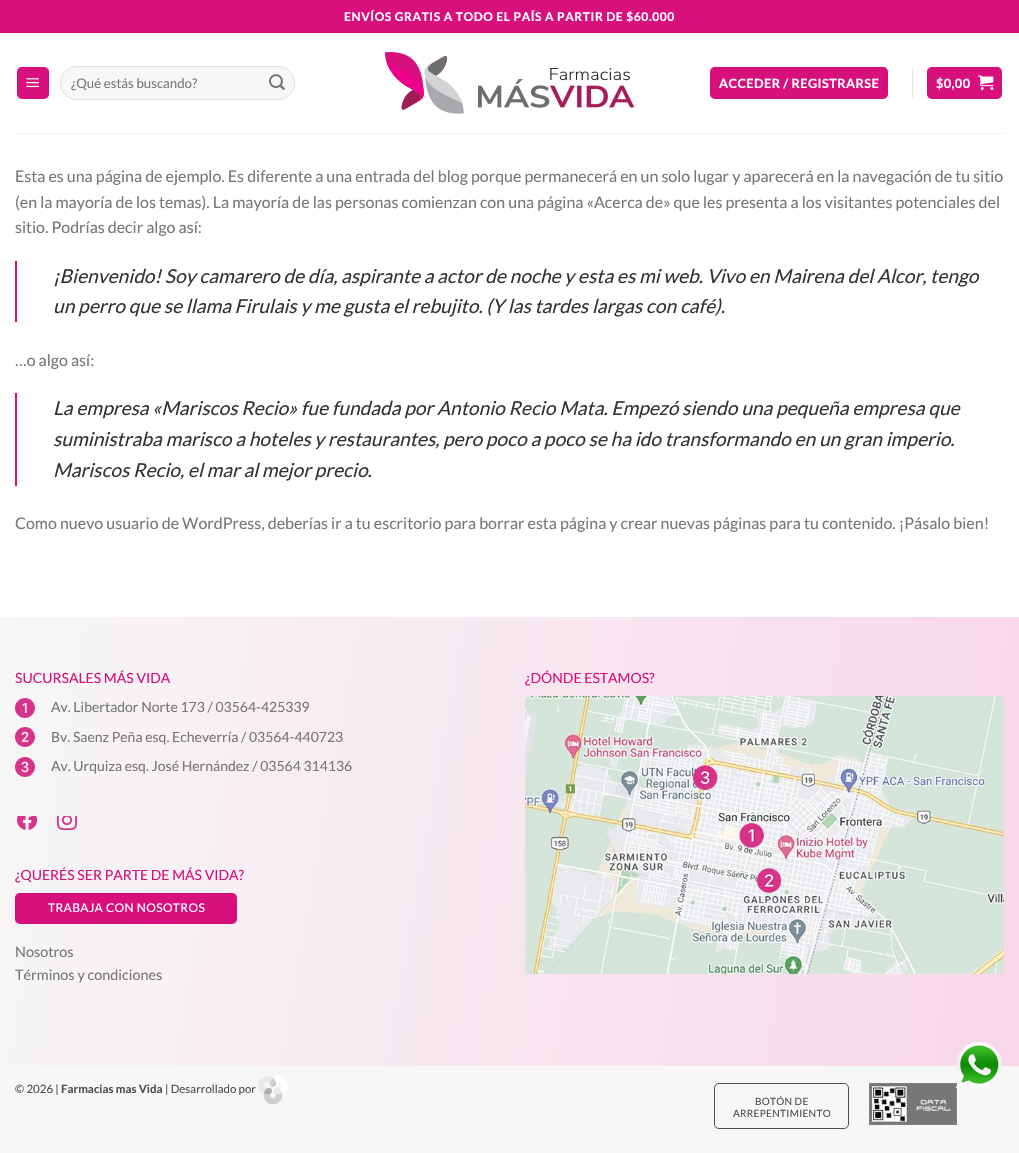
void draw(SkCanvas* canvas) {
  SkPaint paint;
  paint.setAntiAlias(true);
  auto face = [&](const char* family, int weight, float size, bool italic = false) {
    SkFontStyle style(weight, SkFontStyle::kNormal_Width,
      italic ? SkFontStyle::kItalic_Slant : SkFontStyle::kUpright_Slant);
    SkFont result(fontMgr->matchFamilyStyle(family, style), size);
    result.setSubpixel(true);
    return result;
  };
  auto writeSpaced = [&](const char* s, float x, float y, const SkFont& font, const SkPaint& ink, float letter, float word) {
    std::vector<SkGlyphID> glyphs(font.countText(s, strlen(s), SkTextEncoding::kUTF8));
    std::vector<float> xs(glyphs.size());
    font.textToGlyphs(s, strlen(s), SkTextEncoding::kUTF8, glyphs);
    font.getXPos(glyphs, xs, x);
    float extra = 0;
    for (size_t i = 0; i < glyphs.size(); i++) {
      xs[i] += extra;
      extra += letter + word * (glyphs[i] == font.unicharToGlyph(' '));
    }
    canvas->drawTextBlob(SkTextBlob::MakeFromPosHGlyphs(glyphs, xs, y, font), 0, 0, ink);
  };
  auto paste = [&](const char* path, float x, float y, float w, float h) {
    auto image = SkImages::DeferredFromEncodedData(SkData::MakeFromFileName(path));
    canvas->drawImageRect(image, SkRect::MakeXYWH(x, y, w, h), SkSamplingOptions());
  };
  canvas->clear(0xffffffff);
  paint.setColor(0xffd8107e);
  canvas->drawRect(SkRect::MakeXYWH(0, 0, 1019, 33), paint);
  canvas->drawRoundRect(SkRect::MakeXYWH(17, 67, 32, 32), 5, 5, paint);
  paint.setStroke(true);
  paint.setStrokeWidth(1);
  paint.setColor(0x0d000000);
  canvas->drawRect(SkRect::MakeXYWH(17.5f, 67.5f, 31, 31), paint);
  paste("img/1.png", 26, 78, 13, 10);
  paint.setStroke(false);
  paint.setColor(0xfff7f7f7);
  canvas->drawRoundRect(SkRect::MakeXYWH(60, 66, 235, 34), 17, 17, paint);
  paint.setStroke(true);
  paint.setColor(0x17000000);
  canvas->drawRoundRect(SkRect::MakeXYWH(60.5f, 66.5f, 234, 33), 16.5f, 16.5f, paint);
  paste("img/2.png", 269, 74, 16, 16);
  paste("img/3.png", 385, 52, 249, 62);
  paint.setStroke(false);
  paint.setColor(0xffd8107e);
  canvas->drawRoundRect(SkRect::MakeXYWH(710, 67, 178, 32), 5, 5, paint);
  paint.setStroke(true);
  paint.setColor(0x0d000000);
  canvas->drawRect(SkRect::MakeXYWH(710.5f, 67.5f, 177, 31), paint);
  paint.setStroke(false);
  paint.setColor(0xffc20e71);
  canvas->drawRect(SkRect::MakeXYWH(884, 76, 1, 15), paint);
  paint.setColor(0xffe6e6e6);
  canvas->drawRect(SkRect::MakeXYWH(912, 68, 1, 30), paint);
  paint.setColor(0xffd8107e);
  canvas->drawRoundRect(SkRect::MakeXYWH(927, 67, 75, 32), 5, 5, paint);
  paint.setStroke(true);
  paint.setColor(0x0d000000);
  canvas->drawRect(SkRect::MakeXYWH(927.5f, 67.5f, 74, 31), paint);
  paste("img/4.png", 978, 75, 16, 15);
  paint.setStroke(false);
  {
    const struct { float x, y, w, h; SkColor color; } items[] = {
      {15, 133, 989, 1, 0xfff1f1f1},
      {15, 261, 2, 61, 0xffd8107e},
      {15, 393, 2, 93, 0xffd8107e},
    };
    for (auto [x, y, w, h, color] : items) {
      paint.setColor(color);
      canvas->drawRect(SkRect::MakeXYWH(x, y, w, h), paint);
    }
  }
  {
    const SkColor colors[] = {0xfff7f7f7, 0xfff8d7e8};
    const float stops[] = {0, 1};
    const SkPoint ends[] = {{-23, 748}, {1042, 935}};
    paint.setShader(SkGradientShader::MakeLinear(ends, colors, stops, 2, SkTileMode::kClamp));
    paint.setAlpha(255);
  }
  canvas->drawRect(SkRect::MakeXYWH(0, 617, 1019, 449), paint);
  paste("img/5.png", 15, 698, 20, 20);
  paste("img/6.png", 15, 727, 20, 20);
  paste("img/7.png", 15, 757, 20, 20);
  paste("img/8.png", 17, 816, 21, 14);
  paste("img/9.png", 57, 816, 20, 14);
  paint.setShader(nullptr);
  paint.setColor(0xffd8107e);
  canvas->drawRoundRect(SkRect::MakeXYWH(15, 893, 222, 31), 5, 5, paint);
  paint.setStroke(true);
  paint.setColor(0x0d000000);
  canvas->drawRect(SkRect::MakeXYWH(15.5f, 893.5f, 221, 30), paint);
  paste("img/10.png", 525, 696, 479, 278);
  paint.setStroke(false);
  paint.setColor(0xfff7f7f7);
  canvas->drawRect(SkRect::MakeXYWH(0, 1066, 1019, 87), paint);
  paste("img/13.png", 869, 1083, 88, 42);
  paste("img/11.png", 956, 1042, 46, 47);
  paste("img/12.png", 258, 1076, 30, 28);
  paint.setStroke(true);
  paint.setColor(0xff4c4e53);
  canvas->drawRoundRect(SkRect::MakeXYWH(714.5f, 1083.5f, 134, 45), 4.5f, 4.5f, paint);
  auto f0 = face("Lato", 700, 12);
  paint.setStroke(false);
  paint.setColor(0xffffffff);
  writeSpaced("ENVÍOS GRATIS A TODO EL PAÍS A PARTIR DE $60.000", 344, 21, f0, paint, 0.6f, 0);
  auto f1 = face("Lato", 400, 13.25f);
  paint.setColor(0xff777777);
  canvas->drawString("¿Qué estás buscando?", 71, 88, f1, paint);
  auto f2 = face("Lato", 700, 12.75f);
  paint.setColor(0xffffffff);
  writeSpaced("ACCEDER / REGISTRARSE", 719, 88, f2, paint, 0.4f, 0);
  writeSpaced("$0,00", 936, 88, f2, paint, 0.4f, 0);
  auto f3 = face("Lato", 400, 16);
  paint.setColor(0xff777777);
  {
    const struct { const char* s; float x, y; } items[] = {
      {"Esta es una página de ejemplo. Es diferente a una entrada del blog porque permanecerá en un solo lugar y aparecerá en la navegación de tu sitio", 15, 182},
      {"(en la mayoría de los temas). La mayoría de las personas comienzan con una página «Acerca de» que les presenta a los visitantes potenciales del", 15, 208},
      {"sitio. Podrías decir algo así:", 15, 233},
    };
    for (auto [s, x, y] : items) {
      canvas->drawString(s, x, y, f3, paint);
    }
  }
  auto f4 = face("Lato", 400, 19.2f, true);
  paint.setColor(0xff333333);
  canvas->drawString("¡Bienvenido! Soy camarero de día, aspirante a actor de noche y esta es mi web. Vivo en Mairena del Alcor, tengo", 53, 283, f4, paint);
  canvas->drawString("un perro que se llama Firulais y me gusta el rebujito. (Y las tardes largas con café).", 53, 313, f4, paint);
  paint.setColor(0xff777777);
  canvas->drawString("…o algo así:", 15, 366, f3, paint);
  paint.setColor(0xff333333);
  {
    const struct { const char* s; float x, y; } items[] = {
      {"La empresa «Mariscos Recio» fue fundada por Antonio Recio Mata. Empezó siendo una pequeña empresa que", 53, 415},
      {"suministraba marisco a hoteles y restaurantes, pero poco a poco se ha ido transformando en un gran imperio.", 53, 446},
      {"Mariscos Recio, el mar al mejor precio.", 53, 477},
    };
    for (auto [s, x, y] : items) {
      canvas->drawString(s, x, y, f4, paint);
    }
  }
  paint.setColor(0xff777777);
  canvas->drawString("Como nuevo usuario de WordPress, deberías ir a tu escritorio para borrar esta página y crear nuevas páginas para tu contenido. ¡Pásalo bien!", 15, 529, f3, paint);
  auto f5 = face("Lato", 400, 14);
  paint.setColor(0xffd8107e);
  canvas->drawString("SUCURSALES MÁS VIDA", 15, 683, f5, paint);
  paint.setColor(0xff777777);
  {
    const struct { const char* s; float x, y; } items[] = {
      {"Av. Libertador Norte 173 / 03564-425339", 51, 712},
      {"Bv. Saenz Peña esq. Echeverría / 03564-440723", 51, 742},
      {"Av. Urquiza esq. José Hernández / 03564 314136", 51, 771},
    };
    for (auto [s, x, y] : items) {
      canvas->drawString(s, x, y, f5, paint);
    }
  }
  paint.setColor(0xffd8107e);
  canvas->drawString("¿QUERÉS SER PARTE DE MÁS VIDA?", 15, 880, f5, paint);
  auto f6 = face("Lato", 400, 12);
  paint.setColor(0xffffffff);
  writeSpaced("TRABAJA CON NOSOTROS", 48, 912, f6, paint, 0.4f, 0);
  auto f7 = face("Lato", 400, 14.4f);
  paint.setColor(0xff777777);
  canvas->drawString("Nosotros", 15, 957, f7, paint);
  canvas->drawString("Términos y condiciones", 15, 980, f7, paint);
  paint.setColor(0xffd8107e);
  canvas->drawString("¿DÓNDE ESTAMOS?", 525, 683, f5, paint);
  auto f8 = face("Lato", 400, 11.5f);
  paint.setColor(0xff4c4e53);
  canvas->drawString("© 2026 |", 15, 1093, f8, paint);
  auto f9 = face("Lato", 700, 11.5f);
  canvas->drawString("Farmacias mas Vida", 61, 1093, f9, paint);
  canvas->drawString("| Desarrollado por", 165, 1093, f8, paint);
  auto f10 = face("Lato", 400, 10);
  writeSpaced("BOTÓN DE", 755, 1105, f10, paint, 0.3f, 0);
  writeSpaced("ARREPENTIMIENTO", 733, 1117, f10, paint, 0.3f, 0);
}
